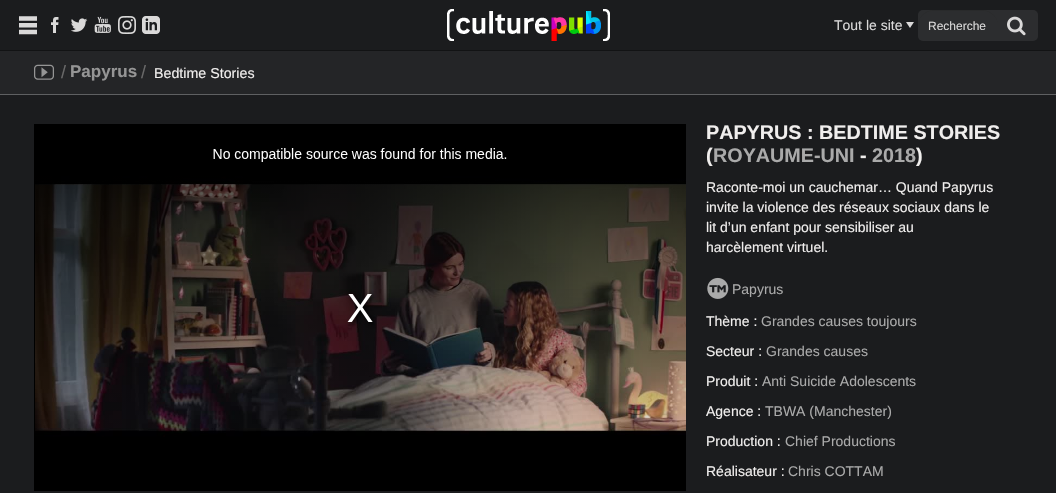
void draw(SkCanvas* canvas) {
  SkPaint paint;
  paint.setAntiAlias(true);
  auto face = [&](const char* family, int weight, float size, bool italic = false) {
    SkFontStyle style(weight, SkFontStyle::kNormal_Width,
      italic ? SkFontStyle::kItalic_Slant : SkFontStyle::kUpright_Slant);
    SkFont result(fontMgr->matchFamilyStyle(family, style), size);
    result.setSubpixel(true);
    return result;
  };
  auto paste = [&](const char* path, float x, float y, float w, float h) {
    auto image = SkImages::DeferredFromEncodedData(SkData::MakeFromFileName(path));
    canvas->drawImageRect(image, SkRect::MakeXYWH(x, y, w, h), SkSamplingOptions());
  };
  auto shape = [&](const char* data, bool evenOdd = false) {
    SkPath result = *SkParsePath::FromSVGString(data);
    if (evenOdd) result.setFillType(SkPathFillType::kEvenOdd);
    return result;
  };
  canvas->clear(0xff1b1c1e);
  paint.setColor(0xff121314);
  canvas->drawRect(SkRect::MakeXYWH(0, 50, 1056, 1), paint);
  paste("img/1.png", 19, 16, 18, 19);
  paste("img/2.png", 447, 9, 163, 32);
  paste("img/3.png", 51, 17, 8, 16);
  paste("img/4.png", 71, 18, 17, 14);
  paste("img/5.png", 94, 16, 17, 17);
  paste("img/6.png", 118, 16, 18, 18);
  paste("img/7.png", 142, 16, 18, 18);
  paint.setColor(0xffdad9d9);
  canvas->drawPath(shape("M906 22H914L910 28Z"), paint);
  paint.setColor(0xff2c2d2f);
  canvas->drawRoundRect(SkRect::MakeXYWH(918, 10, 120, 31), 5, 5, paint);
  paint.setColor(0xff292a2b);
  canvas->drawPath(shape("M933 11H983C991 11 998 18 998 26V25C998 17 991 10 983 10H933C925 10 918 17 918 25V26C918 18 925 11 933 11Z"), paint);
  paste("img/8.png", 1007, 16, 19, 20);
  paint.setColor(0xff5f6062);
  canvas->drawRect(SkRect::MakeXYWH(0, 94, 1056, 1), paint);
  paint.setColor(0xff242527);
  canvas->drawRect(SkRect::MakeXYWH(0, 51, 1056, 43), paint);
  paste("img/9.png", 34, 64, 20, 16);
  paste("img/10.png", 34, 124, 652, 367);
  paste("img/11.png", 707, 277, 22, 22);
  auto f0 = face("Liberation Sans", 400, 14);
  paint.setColor(0xffdad9d9);
  canvas->drawString("Tout le site", 834, 30, f0, paint);
  auto f1 = face("Liberation Sans", 400, 12);
  canvas->drawString("Recherche", 928, 30, f1, paint);
  auto f2 = face("Liberation Sans", 400, 18);
  paint.setColor(0xff696969);
  canvas->drawString("/", 61, 78, f2, paint);
  auto f3 = face("Liberation Sans", 700, 17);
  paint.setColor(0xff959595);
  canvas->drawString("Papyrus", 70, 77, f3, paint);
  paint.setColor(0xff696969);
  canvas->drawString("/", 141, 78, f2, paint);
  auto f4 = face("Liberation Sans", 400, 14.25f);
  paint.setColor(0xfff0eeed);
  canvas->drawString("Bedtime Stories", 154, 78, f4, paint);
  auto f5 = face("Liberation Sans", 700, 19.75f);
  canvas->drawString("PAPYRUS : BEDTIME STORIES", 706, 139, f5, paint);
  canvas->drawString("(", 706, 162, f5, paint);
  paint.setColor(0xffaaaaaa);
  canvas->drawString("ROYAUME-UNI", 713, 162, f5, paint);
  paint.setColor(0xfff0eeed);
  canvas->drawString("-", 860, 162, f5, paint);
  paint.setColor(0xffaaaaaa);
  canvas->drawString("2018", 872, 162, f5, paint);
  paint.setColor(0xfff0eeed);
  canvas->drawString(")", 916, 162, f5, paint);
  {
    const struct { const char* s; float x, y; } items[] = {
      {"Raconte-moi un cauchemar… Quand Papyrus", 706, 192},
      {"invite la violence des réseaux sociaux dans le", 706, 212},
      {"lit d’un enfant pour sensibiliser au", 706, 232},
      {"harcèlement virtuel.", 706, 252},
    };
    for (auto [s, x, y] : items) {
      canvas->drawString(s, x, y, f0, paint);
    }
  }
  paint.setColor(0xffaaaaaa);
  canvas->drawString("Papyrus", 732, 294, f0, paint);
  paint.setColor(0xfff0eeed);
  canvas->drawString("Thème :", 706, 326, f0, paint);
  paint.setColor(0xffaaaaaa);
  canvas->drawString("Grandes causes toujours", 761, 326, f0, paint);
  paint.setColor(0xfff0eeed);
  canvas->drawString("Secteur :", 706, 356, f0, paint);
  paint.setColor(0xffaaaaaa);
  canvas->drawString("Grandes causes", 766, 356, f0, paint);
  paint.setColor(0xfff0eeed);
  canvas->drawString("Produit :", 706, 386, f0, paint);
  paint.setColor(0xffaaaaaa);
  canvas->drawString("Anti Suicide Adolescents", 762, 386, f0, paint);
  paint.setColor(0xfff0eeed);
  canvas->drawString("Agence :", 706, 416, f0, paint);
  paint.setColor(0xffaaaaaa);
  canvas->drawString("TBWA (Manchester)", 765, 416, f0, paint);
  paint.setColor(0xfff0eeed);
  canvas->drawString("Production :", 706, 446, f0, paint);
  paint.setColor(0xffaaaaaa);
  canvas->drawString("Chief Productions", 785, 446, f0, paint);
  paint.setColor(0xfff0eeed);
  canvas->drawString("Réalisateur :", 706, 476, f0, paint);
  paint.setColor(0xffaaaaaa);
  canvas->drawString("Chris COTTAM", 788, 476, f0, paint);
}
